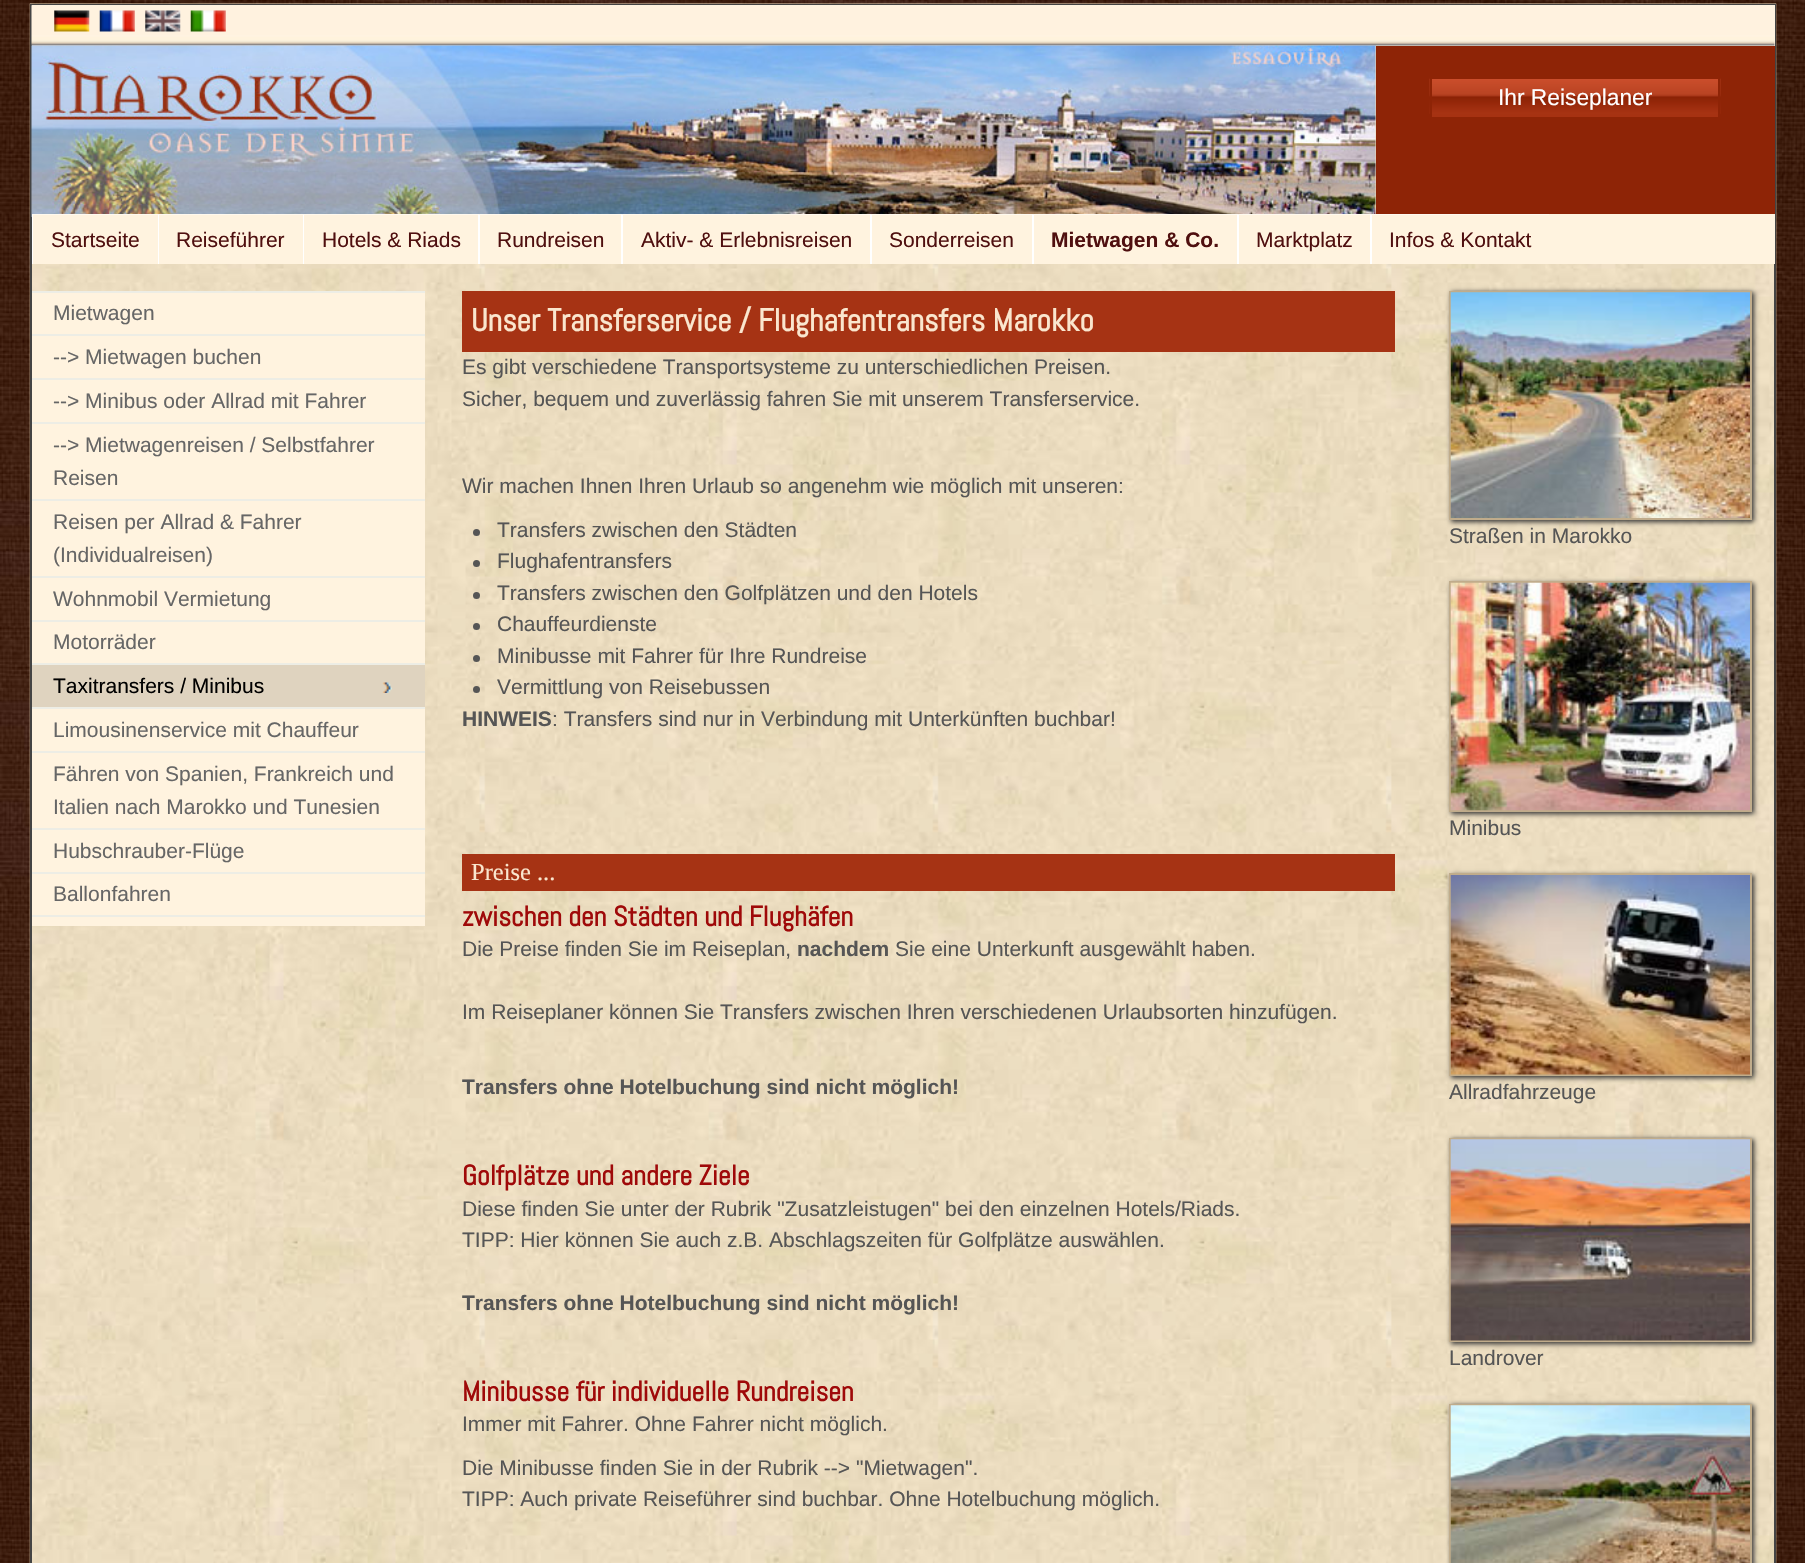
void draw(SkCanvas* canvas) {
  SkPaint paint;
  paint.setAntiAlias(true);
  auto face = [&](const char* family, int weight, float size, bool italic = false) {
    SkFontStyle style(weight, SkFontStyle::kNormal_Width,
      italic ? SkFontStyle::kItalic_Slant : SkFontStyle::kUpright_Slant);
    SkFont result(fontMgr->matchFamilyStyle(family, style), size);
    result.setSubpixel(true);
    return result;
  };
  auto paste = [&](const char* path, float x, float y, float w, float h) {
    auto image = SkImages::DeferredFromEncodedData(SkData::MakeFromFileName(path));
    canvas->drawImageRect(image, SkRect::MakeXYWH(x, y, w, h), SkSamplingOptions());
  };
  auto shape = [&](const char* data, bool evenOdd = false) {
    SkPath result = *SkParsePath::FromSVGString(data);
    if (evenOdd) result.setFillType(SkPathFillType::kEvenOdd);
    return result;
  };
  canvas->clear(0xffffffff);
  paste("img/1.png", 0, 0, 1805, 1563);
  paste("img/2.png", 29, 3, 1748, 1560);
  paint.setStroke(true);
  paint.setStrokeWidth(2);
  paint.setColor(0xff444444);
  canvas->drawRect(SkRect::MakeXYWH(31, 5, 1744, 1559), paint);
  paint.setStroke(false);
  paint.setColor(0xfffff3de);
  canvas->drawRect(SkRect::MakeXYWH(32, 5, 1743, 41), paint);
  paste("img/3.png", 31, 5, 1744, 41);
  paste("img/4.png", 54, 10, 36, 22);
  paste("img/5.png", 99, 10, 36, 22);
  paste("img/6.png", 145, 10, 36, 22);
  paste("img/7.png", 190, 10, 36, 22);
  paint.setColor(0xfffff3df);
  canvas->drawRect(SkRect::MakeXYWH(1375, 198, 400, 66), paint);
  paste("img/8.png", 31, 45, 1345, 172);
  paint.setColor(0xff8e2406);
  canvas->drawRect(SkRect::MakeXYWH(1376, 46, 399, 168), paint);
  paint.setColor(0xffa63212);
  canvas->drawRect(SkRect::MakeXYWH(1432, 113, 286, 4), paint);
  paste("img/9.png", 1429, 78, 292, 36);
  paint.setStroke(true);
  paint.setColor(0xff8e2406);
  canvas->drawRect(SkRect::MakeXYWH(1431, 78, 288, 40), paint);
  paint.setStroke(false);
  paint.setColor(0xfffff3df);
  canvas->drawRect(SkRect::MakeXYWH(32, 214, 1344, 50), paint);
  paint.setColor(0xfffff9ef);
  canvas->drawPath(shape("M32 214H158V215H33Z"), paint);
  paint.setColor(0xffffffff);
  canvas->drawPath(shape("M32 264V214L33 215V264Z"), paint);
  paint.setColor(0xfffff9ef);
  canvas->drawPath(shape("M158 214H303V215H159Z"), paint);
  paint.setColor(0xffffffff);
  canvas->drawPath(shape("M158 264V214L159 215V264Z"), paint);
  paint.setColor(0xfffff9ef);
  canvas->drawPath(shape("M303 214H478V215H304Z"), paint);
  paint.setColor(0xffffffff);
  canvas->drawPath(shape("M303 264V214L304 215V264Z"), paint);
  paint.setColor(0xfffff9ef);
  canvas->drawPath(shape("M478 214H621V215H480Z"), paint);
  paint.setColor(0xffffffff);
  canvas->drawPath(shape("M478 264V214L480 215V264Z"), paint);
  paint.setColor(0xfffff9ef);
  canvas->drawPath(shape("M621 214H870V215H623Z"), paint);
  paint.setColor(0xffffffff);
  canvas->drawPath(shape("M621 264V214L623 215V264Z"), paint);
  paint.setColor(0xfffff9ef);
  canvas->drawPath(shape("M870 214H1032V215H872Z"), paint);
  paint.setColor(0xffffffff);
  canvas->drawPath(shape("M870 264V214L872 215V264Z"), paint);
  paint.setColor(0xfffff9ef);
  canvas->drawPath(shape("M1032 214H1237V215H1034Z"), paint);
  paint.setColor(0xffffffff);
  canvas->drawPath(shape("M1032 264V214L1034 215V264Z"), paint);
  paint.setColor(0xfffff9ef);
  canvas->drawPath(shape("M1237 214H1370V215H1239Z"), paint);
  paint.setColor(0xffffffff);
  canvas->drawPath(shape("M1237 264V214L1239 215V264Z"), paint);
  paint.setColor(0xfffff9ef);
  canvas->drawPath(shape("M1370 214H1549V215H1372Z"), paint);
  paint.setColor(0xffffffff);
  canvas->drawPath(shape("M1370 264V214L1372 215V264Z"), paint);
  {
    const struct { float x, y, w, h; SkColor color; } items[] = {
      {32, 293, 393, 633, 0xfffff3df},
      {32, 291, 393, 2, 0xffedede5},
      {32, 334, 393, 2, 0xffedede5},
      {32, 378, 393, 2, 0xffedede5},
      {32, 422, 393, 2, 0xffedede5},
      {32, 499, 393, 2, 0xffedede5},
      {32, 576, 393, 2, 0xffedede5},
      {32, 620, 393, 2, 0xffedede5},
      {32, 663, 393, 2, 0xffedede5},
      {32, 665, 393, 42, 0xffdfd3bf},
    };
    for (auto [x, y, w, h, color] : items) {
      paint.setColor(color);
      canvas->drawRect(SkRect::MakeXYWH(x, y, w, h), paint);
    }
  }
  paste("img/10.png", 382, 682, 10, 11);
  {
    const struct { float x, y, w, h; SkColor color; } items[] = {
      {32, 707, 393, 2, 0xffedede5},
      {32, 751, 393, 2, 0xffedede5},
      {32, 828, 393, 2, 0xffedede5},
      {32, 872, 393, 2, 0xffedede5},
      {32, 915, 393, 2, 0xffedede5},
      {462, 291, 933, 61, 0xffa63314},
    };
    for (auto [x, y, w, h, color] : items) {
      paint.setColor(color);
      canvas->drawRect(SkRect::MakeXYWH(x, y, w, h), paint);
    }
  }
  paint.setColor(0xff555555);
  canvas->drawCircle(476.5f, 532.5f, 3.5f, paint);
  canvas->drawCircle(476.5f, 563.5f, 3.5f, paint);
  canvas->drawCircle(476.5f, 595.5f, 3.5f, paint);
  canvas->drawCircle(476.5f, 626.5f, 3.5f, paint);
  canvas->drawCircle(476.5f, 658.5f, 3.5f, paint);
  canvas->drawCircle(476.5f, 689.5f, 3.5f, paint);
  paint.setColor(0xffa63314);
  canvas->drawRect(SkRect::MakeXYWH(462, 854, 933, 37), paint);
  paint.setColor(0xff333333);
  paint.setMaskFilter(SkMaskFilter::MakeBlur(kNormal_SkBlurStyle, 2.5f));
  canvas->drawRect(SkRect::MakeXYWH(1451, 292, 303, 230), paint);
  paint.setMaskFilter(nullptr);
  paint.setStroke(true);
  paint.setColor(0xffc0ac8b);
  canvas->drawRect(SkRect::MakeXYWH(1450, 292, 301, 227), paint);
  paste("img/11.png", 1450, 292, 300, 226);
  paint.setStroke(false);
  paint.setColor(0xff333333);
  paint.setMaskFilter(SkMaskFilter::MakeBlur(kNormal_SkBlurStyle, 2.5f));
  canvas->drawRect(SkRect::MakeXYWH(1451, 583, 303, 231), paint);
  paint.setMaskFilter(nullptr);
  paint.setStroke(true);
  paint.setColor(0xffc0ac8b);
  canvas->drawRect(SkRect::MakeXYWH(1450, 582, 301, 229), paint);
  paste("img/12.png", 1450, 582, 300, 229);
  paint.setStroke(false);
  paint.setColor(0xff333333);
  paint.setMaskFilter(SkMaskFilter::MakeBlur(kNormal_SkBlurStyle, 2.5f));
  canvas->drawRect(SkRect::MakeXYWH(1451, 875, 303, 203), paint);
  paint.setMaskFilter(nullptr);
  paint.setStroke(true);
  paint.setColor(0xffc0ac8b);
  canvas->drawRect(SkRect::MakeXYWH(1450, 874, 301, 201), paint);
  paste("img/13.png", 1450, 875, 300, 200);
  paint.setStroke(false);
  paint.setColor(0xff333333);
  paint.setMaskFilter(SkMaskFilter::MakeBlur(kNormal_SkBlurStyle, 2.5f));
  canvas->drawRect(SkRect::MakeXYWH(1451, 1139, 303, 205), paint);
  paint.setMaskFilter(nullptr);
  paint.setStroke(true);
  paint.setColor(0xffc0ac8b);
  canvas->drawRect(SkRect::MakeXYWH(1450, 1139, 301, 202), paint);
  paste("img/14.png", 1450, 1139, 300, 202);
  paint.setStroke(false);
  paint.setColor(0xff333333);
  paint.setMaskFilter(SkMaskFilter::MakeBlur(kNormal_SkBlurStyle, 2.5f));
  canvas->drawRect(SkRect::MakeXYWH(1451, 1405, 303, 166), paint);
  paint.setMaskFilter(nullptr);
  paint.setStroke(true);
  paint.setColor(0xffc0ac8b);
  canvas->drawRect(SkRect::MakeXYWH(1450, 1405, 301, 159), paint);
  paste("img/15.png", 1450, 1405, 300, 158);
  auto f0 = face("Liberation Sans", 400, 22.75f);
  paint.setStroke(false);
  paint.setColor(0xffffffff);
  canvas->drawString("Ihr Reiseplaner", 1498, 105, f0, paint);
  auto f1 = face("Liberation Sans", 400, 21);
  paint.setColor(0xff4f0f0f);
  {
    const struct { const char* s; float x, y; } items[] = {
      {"Startseite", 51, 247},
      {"Reiseführer", 176, 247},
      {"Hotels & Riads", 322, 247},
      {"Rundreisen", 497, 247},
      {"Aktiv- & Erlebnisreisen", 641, 247},
      {"Sonderreisen", 889, 247},
    };
    for (auto [s, x, y] : items) {
      canvas->drawString(s, x, y, f1, paint);
    }
  }
  auto f2 = face("Liberation Sans", 700, 21);
  canvas->drawString("Mietwagen & Co.", 1051, 247, f2, paint);
  canvas->drawString("Marktplatz", 1256, 247, f1, paint);
  canvas->drawString("Infos & Kontakt", 1389, 247, f1, paint);
  paint.setColor(0xff666666);
  {
    const struct { const char* s; float x, y; } items[] = {
      {"Mietwagen", 53, 320},
      {"--> Mietwagen buchen", 53, 364},
      {"--> Minibus oder Allrad mit Fahrer", 53, 408},
      {"--> Mietwagenreisen / Selbstfahrer", 53, 452},
      {"Reisen", 53, 485},
      {"Reisen per Allrad & Fahrer", 53, 529},
      {"(Individualreisen)", 53, 562},
      {"Wohnmobil Vermietung", 53, 606},
      {"Motorräder", 53, 649},
    };
    for (auto [s, x, y] : items) {
      canvas->drawString(s, x, y, f1, paint);
    }
  }
  paint.setColor(0xff000000);
  canvas->drawString("Taxitransfers / Minibus", 53, 693, f1, paint);
  paint.setColor(0xff666666);
  {
    const struct { const char* s; float x, y; } items[] = {
      {"Limousinenservice mit Chauffeur", 53, 737},
      {"Fähren von Spanien, Frankreich und", 53, 781},
      {"Italien nach Marokko und Tunesien", 53, 814},
      {"Hubschrauber-Flüge", 53, 858},
      {"Ballonfahren", 53, 901},
    };
    for (auto [s, x, y] : items) {
      canvas->drawString(s, x, y, f1, paint);
    }
  }
  auto f3 = face("Abel", 700, 31.5f);
  paint.setColor(0xfffae6ce);
  canvas->drawString("Unser Transferservice / Flughafentransfers Marokko", 471, 331, f3, paint);
  paint.setColor(0xff555555);
  {
    const struct { const char* s; float x, y; } items[] = {
      {"Es gibt verschiedene Transportsysteme zu unterschiedlichen Preisen.", 462, 374},
      {"Sicher, bequem und zuverlässig fahren Sie mit unserem Transferservice.", 462, 406},
      {"Wir machen Ihnen Ihren Urlaub so angenehm wie möglich mit unseren:", 462, 493},
      {"Transfers zwischen den Städten", 497, 537},
      {"Flughafentransfers", 497, 568},
      {"Transfers zwischen den Golfplätzen und den Hotels", 497, 600},
      {"Chauffeurdienste", 497, 631},
      {"Minibusse mit Fahrer für Ihre Rundreise", 497, 663},
      {"Vermittlung von Reisebussen", 497, 694},
    };
    for (auto [s, x, y] : items) {
      canvas->drawString(s, x, y, f1, paint);
    }
  }
  canvas->drawString("HINWEIS", 462, 726, f2, paint);
  canvas->drawString(": Transfers sind nur in Verbindung mit Unterkünften buchbar!", 552, 726, f1, paint);
  auto f4 = face("Liberation Serif", 400, 24.5f);
  paint.setColor(0xfffae6ce);
  canvas->drawString("Preise ...", 471, 880, f4, paint);
  auto f5 = face("Abel", 700, 28);
  paint.setColor(0xff9f0909);
  canvas->drawString("zwischen den Städten und Flughäfen", 462, 926, f5, paint);
  paint.setColor(0xff555555);
  canvas->drawString("Die Preise finden Sie im Reiseplan,", 462, 956, f1, paint);
  canvas->drawString("nachdem", 797, 956, f2, paint);
  canvas->drawString("Sie eine Unterkunft ausgewählt haben.", 895, 956, f1, paint);
  canvas->drawString("Im Reiseplaner können Sie Transfers zwischen Ihren verschiedenen Urlaubsorten hinzufügen.", 462, 1019, f1, paint);
  canvas->drawString("Transfers ohne Hotelbuchung sind nicht möglich!", 462, 1094, f2, paint);
  paint.setColor(0xff9f0909);
  canvas->drawString("Golfplätze und andere Ziele", 462, 1185, f5, paint);
  paint.setColor(0xff555555);
  canvas->drawString("Diese finden Sie unter der Rubrik \"Zusatzleistugen\" bei den einzelnen Hotels/Riads.", 462, 1216, f1, paint);
  canvas->drawString("TIPP: Hier können Sie auch z.B. Abschlagszeiten für Golfplätze auswählen.", 462, 1247, f1, paint);
  canvas->drawString("Transfers ohne Hotelbuchung sind nicht möglich!", 462, 1310, f2, paint);
  paint.setColor(0xff9f0909);
  canvas->drawString("Minibusse für individuelle Rundreisen", 462, 1401, f5, paint);
  paint.setColor(0xff555555);
  {
    const struct { const char* s; float x, y; } items[] = {
      {"Immer mit Fahrer. Ohne Fahrer nicht möglich.", 462, 1431},
      {"Die Minibusse finden Sie in der Rubrik --> \"Mietwagen\".", 462, 1475},
      {"TIPP: Auch private Reiseführer sind buchbar. Ohne Hotelbuchung möglich.", 462, 1506},
      {"Straßen in Marokko", 1449, 543},
      {"Minibus", 1449, 835},
      {"Allradfahrzeuge", 1449, 1099},
      {"Landrover", 1449, 1365},
    };
    for (auto [s, x, y] : items) {
      canvas->drawString(s, x, y, f1, paint);
    }
  }
}
